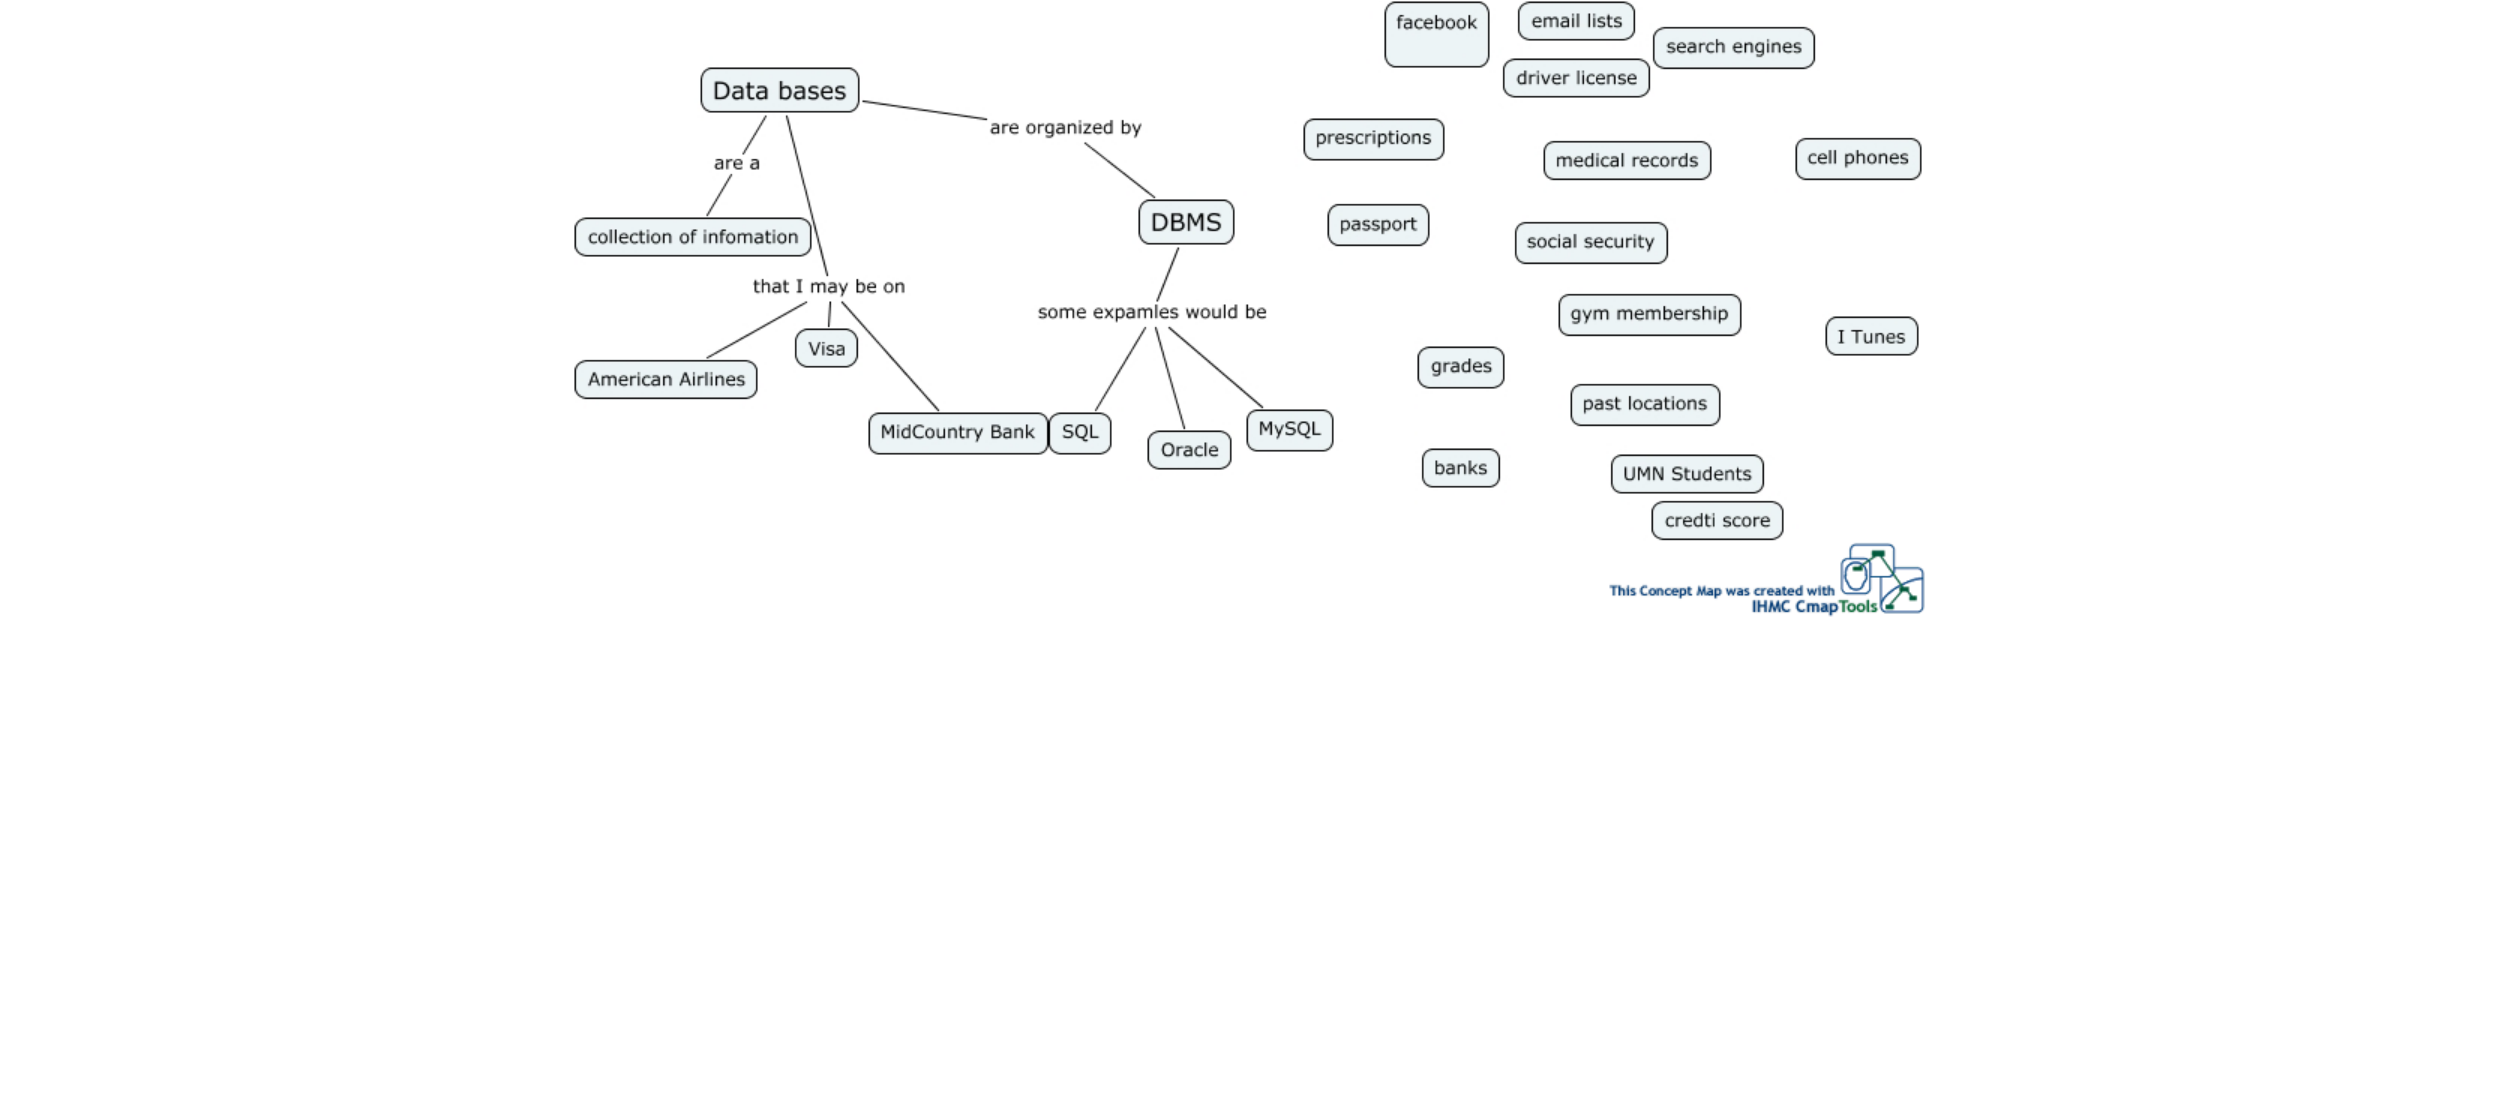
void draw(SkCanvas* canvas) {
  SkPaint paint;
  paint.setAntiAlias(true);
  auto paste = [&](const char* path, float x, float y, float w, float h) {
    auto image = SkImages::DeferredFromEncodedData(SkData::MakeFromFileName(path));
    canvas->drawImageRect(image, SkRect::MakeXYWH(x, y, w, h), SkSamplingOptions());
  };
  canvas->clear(0xffffffff);
  paste("img/1.png", 574, 1, 1348, 540);
  paste("img/2.png", 1609, 542, 316, 75);
}
